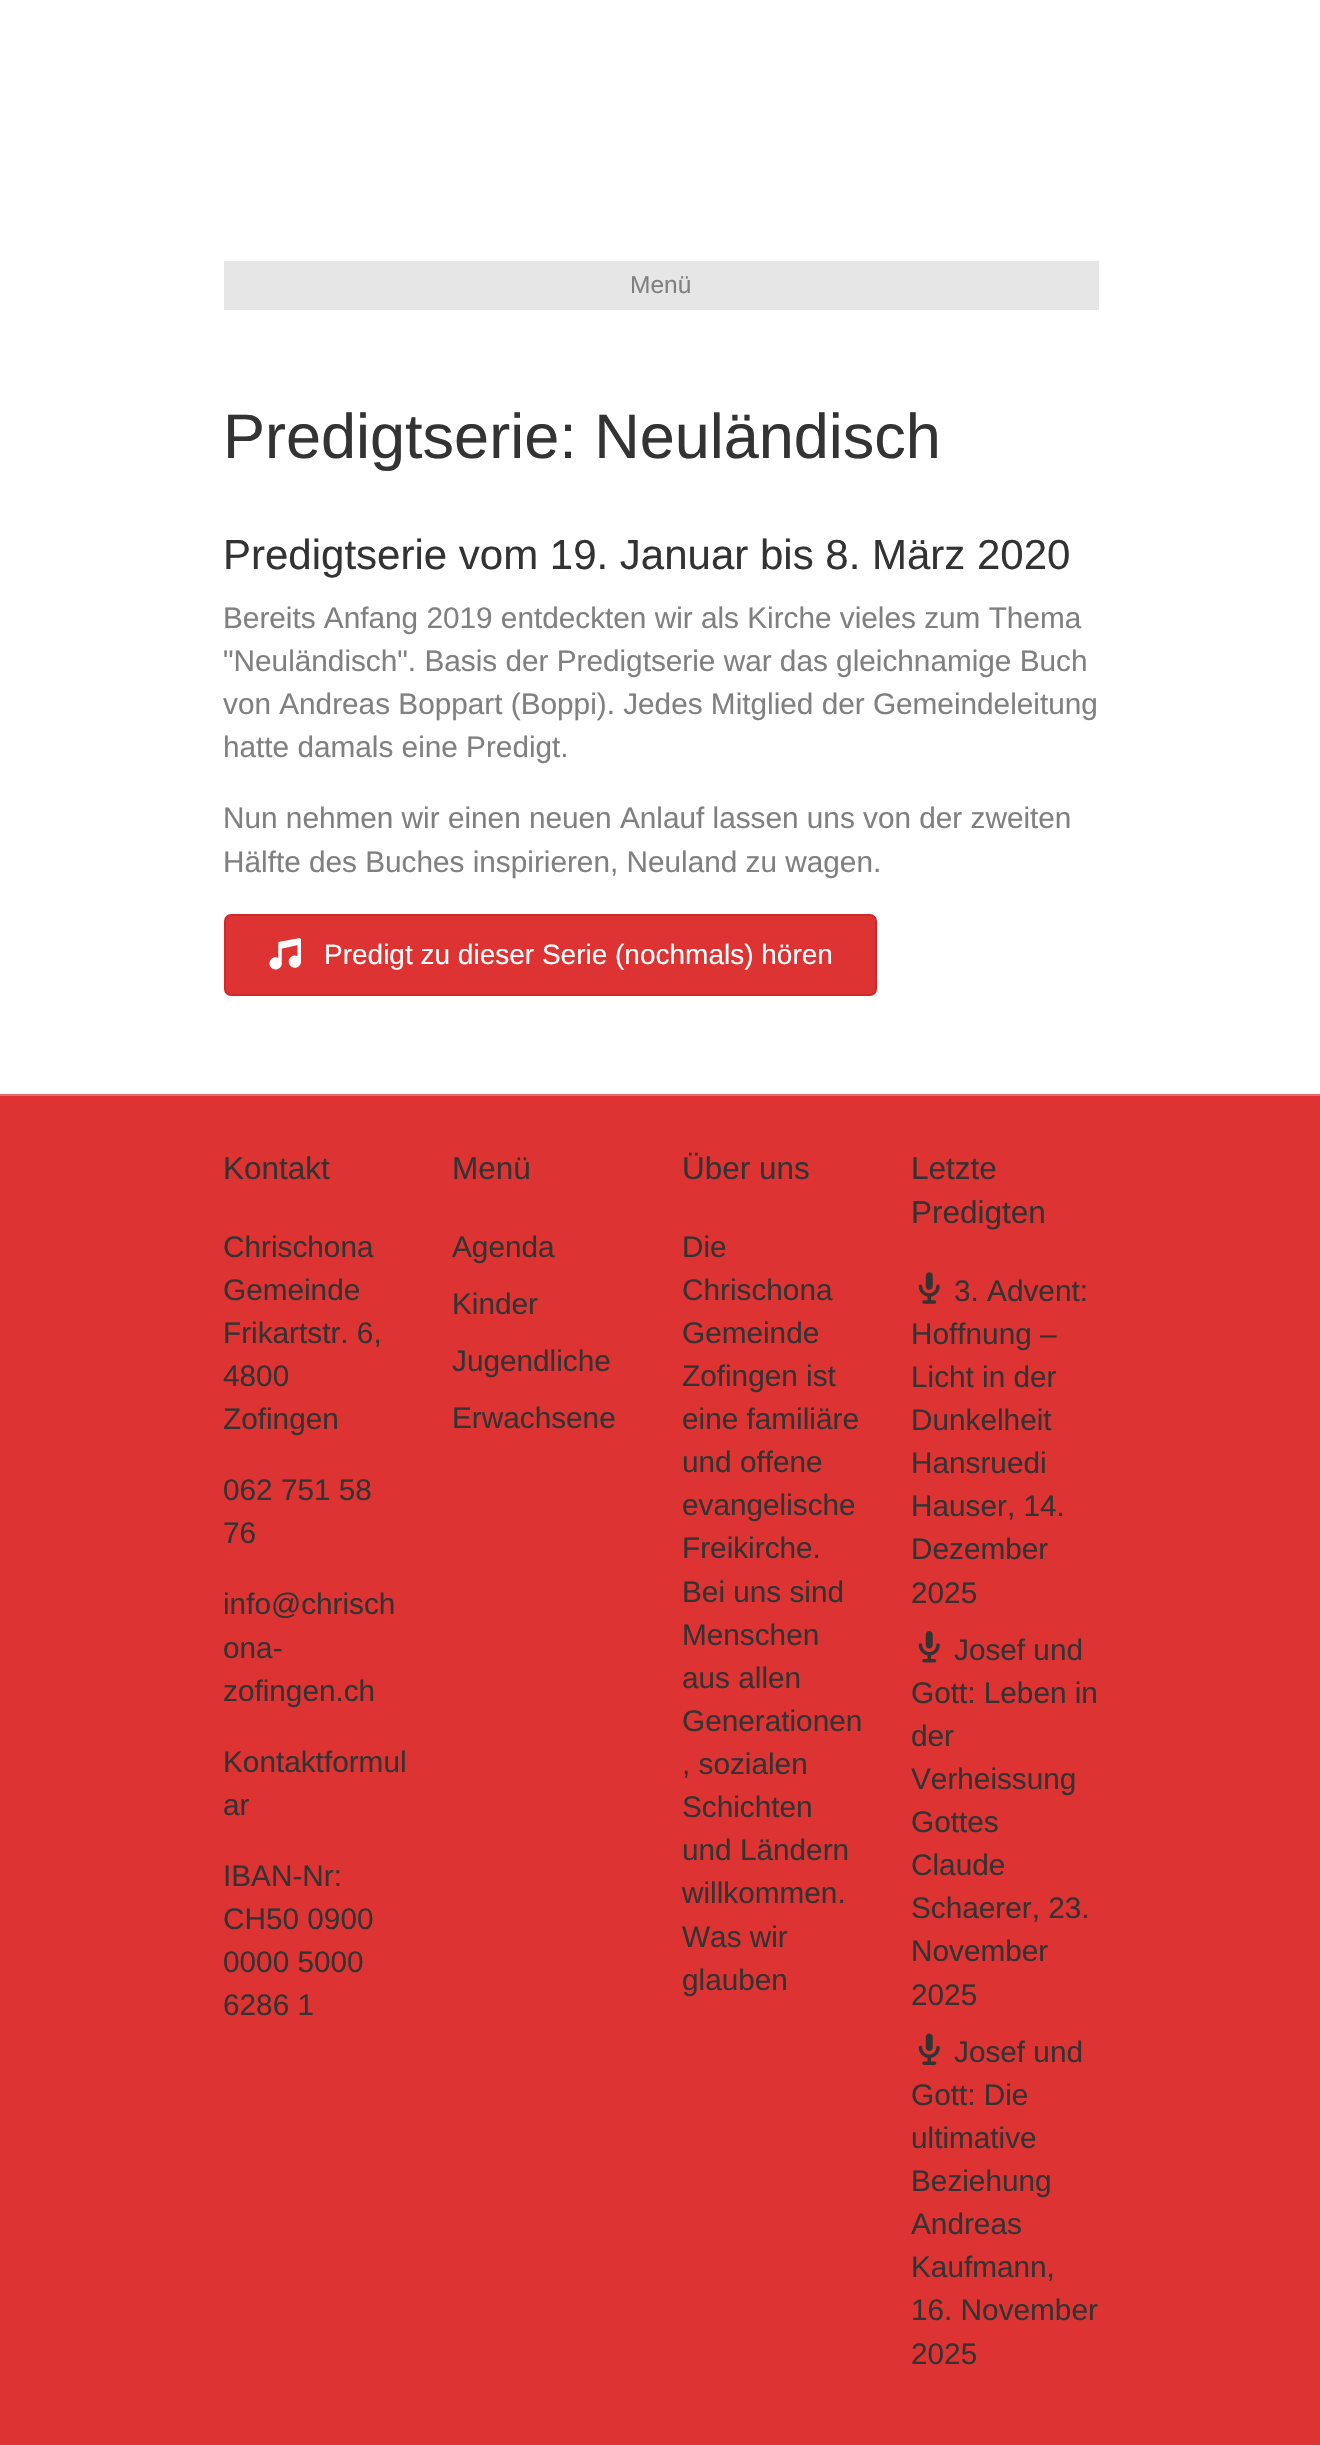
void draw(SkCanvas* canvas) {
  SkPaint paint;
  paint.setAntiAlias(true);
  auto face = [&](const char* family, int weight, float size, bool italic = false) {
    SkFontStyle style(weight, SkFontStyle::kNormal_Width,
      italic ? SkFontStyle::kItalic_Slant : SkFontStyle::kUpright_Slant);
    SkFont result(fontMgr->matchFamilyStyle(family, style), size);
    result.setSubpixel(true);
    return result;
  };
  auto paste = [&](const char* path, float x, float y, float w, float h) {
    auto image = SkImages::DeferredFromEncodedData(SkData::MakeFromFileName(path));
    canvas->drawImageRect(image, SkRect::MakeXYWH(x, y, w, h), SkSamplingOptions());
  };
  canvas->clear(0xffffffff);
  paint.setColor(0xffe6e6e6);
  canvas->drawRect(SkRect::MakeXYWH(224, 261, 875, 49), paint);
  paint.setColor(0xffdd3333);
  canvas->drawRoundRect(SkRect::MakeXYWH(225, 915, 651, 80), 6, 6, paint);
  paint.setStroke(true);
  paint.setStrokeWidth(2);
  paint.setColor(0xffd12727);
  canvas->drawRoundRect(SkRect::MakeXYWH(225, 915, 651, 80), 6, 6, paint);
  paste("img/1.png", 269, 938, 32, 32);
  paint.setStroke(false);
  paint.setColor(0xffdd3333);
  canvas->drawRect(SkRect::MakeXYWH(0, 1096, 1320, 1349), paint);
  paint.setColor(0xffe66c6c);
  canvas->drawRect(SkRect::MakeXYWH(0, 1094, 1320, 2), paint);
  paste("img/2.png", 918, 1272, 22, 32);
  paste("img/3.png", 918, 1631, 22, 32);
  paste("img/4.png", 918, 2033, 22, 32);
  auto f0 = face("Liberation Sans", 400, 24.5f);
  paint.setColor(0xff808080);
  canvas->drawString("Menü", 630, 293, f0, paint);
  auto f1 = face("Liberation Sans", 400, 63);
  paint.setColor(0xff333333);
  canvas->drawString("Predigtserie: Neuländisch", 223, 458, f1, paint);
  auto f2 = face("Liberation Sans", 400, 42);
  canvas->drawString("Predigtserie vom 19. Januar bis 8. März 2020", 223, 569, f2, paint);
  auto f3 = face("Liberation Sans", 400, 29.75f);
  paint.setColor(0xff808080);
  {
    const struct { const char* s; float x, y; } items[] = {
      {"Bereits Anfang 2019 entdeckten wir als Kirche vieles zum Thema", 223, 628},
      {"\"Neuländisch\". Basis der Predigtserie war das gleichnamige Buch", 223, 671},
      {"von Andreas Boppart (Boppi). Jedes Mitglied der Gemeindeleitung", 223, 714},
      {"hatte damals eine Predigt.", 223, 757},
      {"Nun nehmen wir einen neuen Anlauf lassen uns von der zweiten", 223, 828},
      {"Hälfte des Buches inspirieren, Neuland zu wagen.", 223, 872},
    };
    for (auto [s, x, y] : items) {
      canvas->drawString(s, x, y, f3, paint);
    }
  }
  auto f4 = face("Liberation Sans", 400, 28);
  paint.setColor(0xffffffff);
  canvas->drawString("Predigt zu dieser Serie (nochmals) hören", 324, 964, f4, paint);
  auto f5 = face("Liberation Sans", 400, 31.5f);
  paint.setColor(0xff333333);
  canvas->drawString("Kontakt", 223, 1179, f5, paint);
  {
    const struct { const char* s; float x, y; } items[] = {
      {"Chrischona", 223, 1257},
      {"Gemeinde", 223, 1300},
      {"Frikartstr. 6,", 223, 1343},
      {"4800", 223, 1386},
      {"Zofingen", 223, 1429},
      {"062 751 58", 223, 1500},
      {"76", 223, 1543},
      {"info@chrisch", 223, 1614},
      {"ona-", 223, 1658},
      {"zofingen.ch", 223, 1701},
      {"Kontaktformul", 223, 1772},
      {"ar", 223, 1815},
      {"IBAN-Nr:", 223, 1886},
      {"CH50 0900", 223, 1929},
      {"0000 5000", 223, 1972},
      {"6286 1", 223, 2015},
    };
    for (auto [s, x, y] : items) {
      canvas->drawString(s, x, y, f3, paint);
    }
  }
  canvas->drawString("Menü", 452, 1179, f5, paint);
  {
    const struct { const char* s; float x, y; } items[] = {
      {"Agenda", 452, 1257},
      {"Kinder", 452, 1314},
      {"Jugendliche", 452, 1371},
      {"Erwachsene", 452, 1428},
    };
    for (auto [s, x, y] : items) {
      canvas->drawString(s, x, y, f3, paint);
    }
  }
  canvas->drawString("Über uns", 682, 1179, f5, paint);
  {
    const struct { const char* s; float x, y; } items[] = {
      {"Die", 682, 1257},
      {"Chrischona", 682, 1300},
      {"Gemeinde", 682, 1343},
      {"Zofingen ist", 682, 1386},
      {"eine familiäre", 682, 1429},
      {"und offene", 682, 1472},
      {"evangelische", 682, 1515},
      {"Freikirche.", 682, 1558},
      {"Bei uns sind", 682, 1602},
      {"Menschen", 682, 1645},
      {"aus allen", 682, 1688},
      {"Generationen", 682, 1731},
      {", sozialen", 682, 1774},
      {"Schichten", 682, 1817},
      {"und Ländern", 682, 1860},
      {"willkommen.", 682, 1903},
      {"Was wir", 682, 1947},
      {"glauben", 682, 1990},
    };
    for (auto [s, x, y] : items) {
      canvas->drawString(s, x, y, f3, paint);
    }
  }
  canvas->drawString("Letzte", 911, 1179, f5, paint);
  canvas->drawString("Predigten", 911, 1223, f5, paint);
  {
    const struct { const char* s; float x, y; } items[] = {
      {"3. Advent:", 954, 1301},
      {"Hoffnung –", 911, 1344},
      {"Licht in der", 911, 1387},
      {"Dunkelheit", 911, 1430},
      {"Hansruedi", 911, 1473},
      {"Hauser, 14.", 911, 1516},
      {"Dezember", 911, 1559},
      {"2025", 911, 1603},
      {"Josef und", 954, 1660},
      {"Gott: Leben in", 911, 1703},
      {"der", 911, 1746},
      {"Verheissung", 911, 1789},
      {"Gottes", 911, 1832},
      {"Claude", 911, 1875},
      {"Schaerer, 23.", 911, 1918},
      {"November", 911, 1961},
      {"2025", 911, 2005},
      {"Josef und", 954, 2062},
      {"Gott: Die", 911, 2105},
      {"ultimative", 911, 2148},
      {"Beziehung", 911, 2191},
      {"Andreas", 911, 2234},
      {"Kaufmann,", 911, 2277},
      {"16. November", 911, 2320},
      {"2025", 911, 2364},
    };
    for (auto [s, x, y] : items) {
      canvas->drawString(s, x, y, f3, paint);
    }
  }
}
